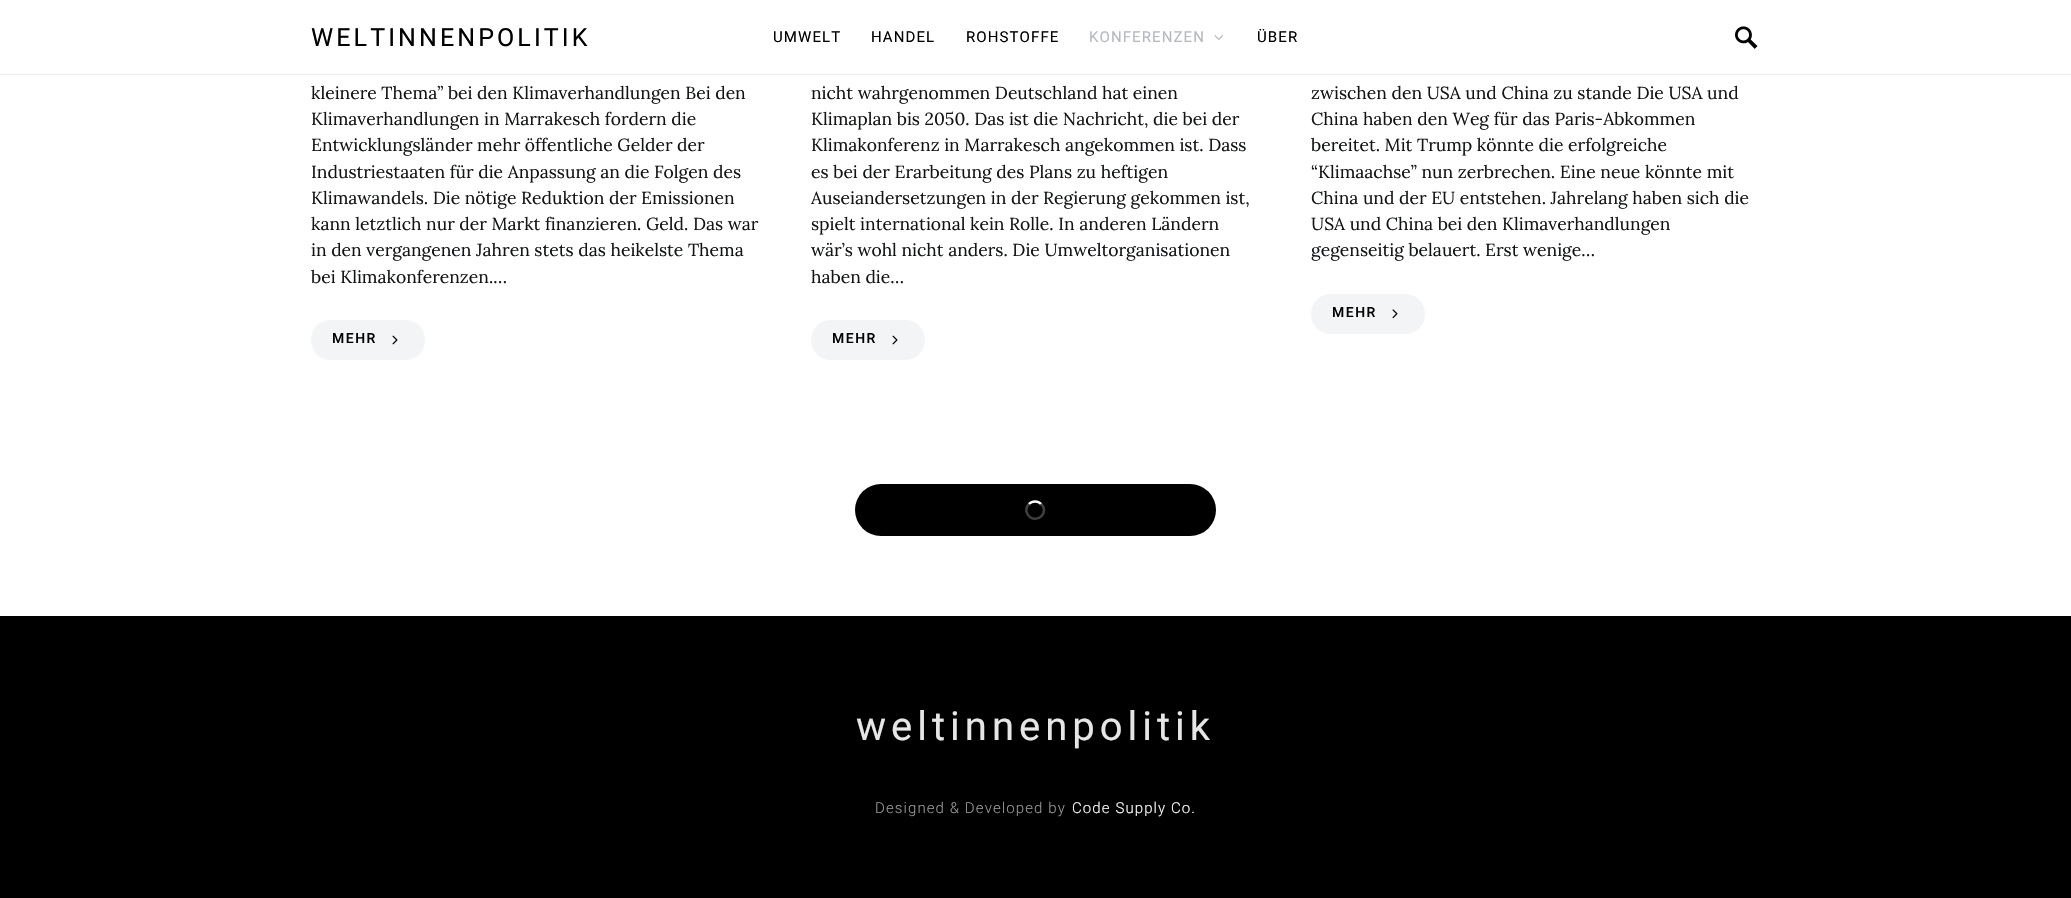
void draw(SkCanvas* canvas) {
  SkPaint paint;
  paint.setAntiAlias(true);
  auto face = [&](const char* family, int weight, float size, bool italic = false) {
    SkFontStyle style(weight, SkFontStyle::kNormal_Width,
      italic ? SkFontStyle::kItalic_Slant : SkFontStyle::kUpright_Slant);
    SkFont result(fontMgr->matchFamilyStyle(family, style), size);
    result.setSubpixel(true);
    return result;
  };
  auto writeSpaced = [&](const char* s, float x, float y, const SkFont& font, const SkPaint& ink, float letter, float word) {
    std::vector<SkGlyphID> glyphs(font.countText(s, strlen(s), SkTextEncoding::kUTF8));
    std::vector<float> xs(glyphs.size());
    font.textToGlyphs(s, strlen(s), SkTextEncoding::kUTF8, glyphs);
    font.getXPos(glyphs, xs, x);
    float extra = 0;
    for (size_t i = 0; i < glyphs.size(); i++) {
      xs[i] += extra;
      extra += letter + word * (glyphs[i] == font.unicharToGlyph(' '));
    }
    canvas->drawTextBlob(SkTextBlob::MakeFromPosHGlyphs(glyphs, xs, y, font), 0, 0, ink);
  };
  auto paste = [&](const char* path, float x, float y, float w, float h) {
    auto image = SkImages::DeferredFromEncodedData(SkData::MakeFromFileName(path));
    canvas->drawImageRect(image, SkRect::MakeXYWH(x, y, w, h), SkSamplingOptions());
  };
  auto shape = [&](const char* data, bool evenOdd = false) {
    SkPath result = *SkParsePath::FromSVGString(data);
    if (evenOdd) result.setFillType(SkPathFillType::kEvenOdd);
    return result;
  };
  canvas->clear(0xffffffff);
  paint.setColor(0xffe9ecef);
  canvas->drawRect(SkRect::MakeXYWH(0, 74, 2071, 1), paint);
  paste("img/1.png", 1214, 35, 9, 5);
  paste("img/2.png", 1735, 26, 23, 23);
  paint.setColor(0xfff2f4f6);
  canvas->drawRoundRect(SkRect::MakeXYWH(311, 320, 114, 40), 20, 20, paint);
  paste("img/3.png", 392, 335, 6, 10);
  canvas->drawRoundRect(SkRect::MakeXYWH(811, 320, 114, 40), 20, 20, paint);
  paste("img/3.png", 892, 335, 6, 10);
  canvas->drawRoundRect(SkRect::MakeXYWH(1311, 294, 114, 40), 20, 20, paint);
  paste("img/4.png", 1392, 309, 6, 10);
  paint.setColor(0xff000000);
  canvas->drawRoundRect(SkRect::MakeXYWH(855, 484, 361, 52), 26, 26, paint);
  paint.setStroke(true);
  paint.setStrokeWidth(2.5f);
  paint.setColor(0xffffffff);
  canvas->drawPath(shape("M1029 504C1032 500.5 1038 500.5 1041 504"), paint);
  paint.setColor(0x40ffffff);
  canvas->drawPath(shape("M1041 504C1043 505.5 1044 507.5 1044 510C1044 520.5 1028.5 522 1026.5 511.5C1026 509 1027 506 1029 504"), paint);
  paint.setStroke(false);
  paint.setColor(0xff000000);
  canvas->drawRect(SkRect::MakeXYWH(0, 616, 2071, 282), paint);
  auto f0 = face("Roboto", 400, 25);
  writeSpaced("WELTINNENPOLITIK", 311, 46, f0, paint, 3.1f, 0);
  auto f1 = face("Roboto", 400, 15);
  {
    const struct { const char* s; float x, y; } items[] = {
      {"UMWELT", 773, 42},
      {"HANDEL", 871, 42},
      {"ROHSTOFFE", 966, 42},
    };
    for (auto [s, x, y] : items) {
      writeSpaced(s, x, y, f1, paint, 1.1f, 0);
    }
  }
  paint.setColor(0xffb7b9c2);
  writeSpaced("KONFERENZEN", 1089, 42, f1, paint, 1.1f, 0);
  paint.setColor(0xff000000);
  writeSpaced("ÜBER", 1257, 42, f1, paint, 1.1f, 0);
  auto f2 = face("Lora", 400, 17.5f);
  paint.setColor(0xff121416);
  {
    const struct { const char* s; float x, y; } items[] = {
      {"kleinere Thema” bei den Klimaverhandlungen Bei den", 311, 99},
      {"Klimaverhandlungen in Marrakesch fordern die", 311, 125},
      {"Entwicklungsländer mehr öffentliche Gelder der", 311, 151},
      {"Industriestaaten für die Anpassung an die Folgen des", 311, 178},
      {"Klimawandels. Die nötige Reduktion der Emissionen", 311, 204},
      {"kann letztlich nur der Markt finanzieren. Geld. Das war", 311, 230},
      {"in den vergangenen Jahren stets das heikelste Thema", 311, 256},
      {"bei Klimakonferenzen.…", 311, 283},
    };
    for (auto [s, x, y] : items) {
      canvas->drawString(s, x, y, f2, paint);
    }
  }
  auto f3 = face("Roboto", 500, 14);
  paint.setColor(0xff000000);
  writeSpaced("MEHR", 332, 343, f3, paint, 1.5f, 0);
  paint.setColor(0xff121416);
  {
    const struct { const char* s; float x, y; } items[] = {
      {"nicht wahrgenommen Deutschland hat einen", 811, 99},
      {"Klimaplan bis 2050. Das ist die Nachricht, die bei der", 811, 125},
      {"Klimakonferenz in Marrakesch angekommen ist. Dass", 811, 151},
      {"es bei der Erarbeitung des Plans zu heftigen", 811, 178},
      {"Auseiandersetzungen in der Regierung gekommen ist,", 811, 204},
      {"spielt international kein Rolle. In anderen Ländern", 811, 230},
      {"wär’s wohl nicht anders. Die Umweltorganisationen", 811, 256},
      {"haben die…", 811, 283},
    };
    for (auto [s, x, y] : items) {
      canvas->drawString(s, x, y, f2, paint);
    }
  }
  paint.setColor(0xff000000);
  writeSpaced("MEHR", 832, 343, f3, paint, 1.5f, 0);
  paint.setColor(0xff121416);
  {
    const struct { const char* s; float x, y; } items[] = {
      {"zwischen den USA und China zu stande Die USA und", 1311, 99},
      {"China haben den Weg für das Paris-Abkommen", 1311, 125},
      {"bereitet. Mit Trump könnte die erfolgreiche", 1311, 151},
      {"“Klimaachse” nun zerbrechen. Eine neue könnte mit", 1311, 178},
      {"China und der EU entstehen. Jahrelang haben sich die", 1311, 204},
      {"USA und China bei den Klimaverhandlungen", 1311, 230},
      {"gegenseitig belauert. Erst wenige…", 1311, 256},
    };
    for (auto [s, x, y] : items) {
      canvas->drawString(s, x, y, f2, paint);
    }
  }
  paint.setColor(0xff000000);
  writeSpaced("MEHR", 1332, 317, f3, paint, 1.5f, 0);
  auto f4 = face("Roboto", 400, 40);
  paint.setColor(0xffe6e6e6);
  writeSpaced("weltinnenpolitik", 856, 740, f4, paint, 5, 0);
  auto f5 = face("Roboto", 300, 15);
  paint.setColor(0xff999999);
  writeSpaced("Designed & Developed by", 875, 813, f5, paint, 1.1f, 0);
  paint.setColor(0xffffffff);
  writeSpaced("Code Supply Co.", 1072, 813, f5, paint, 1.1f, 0);
}
